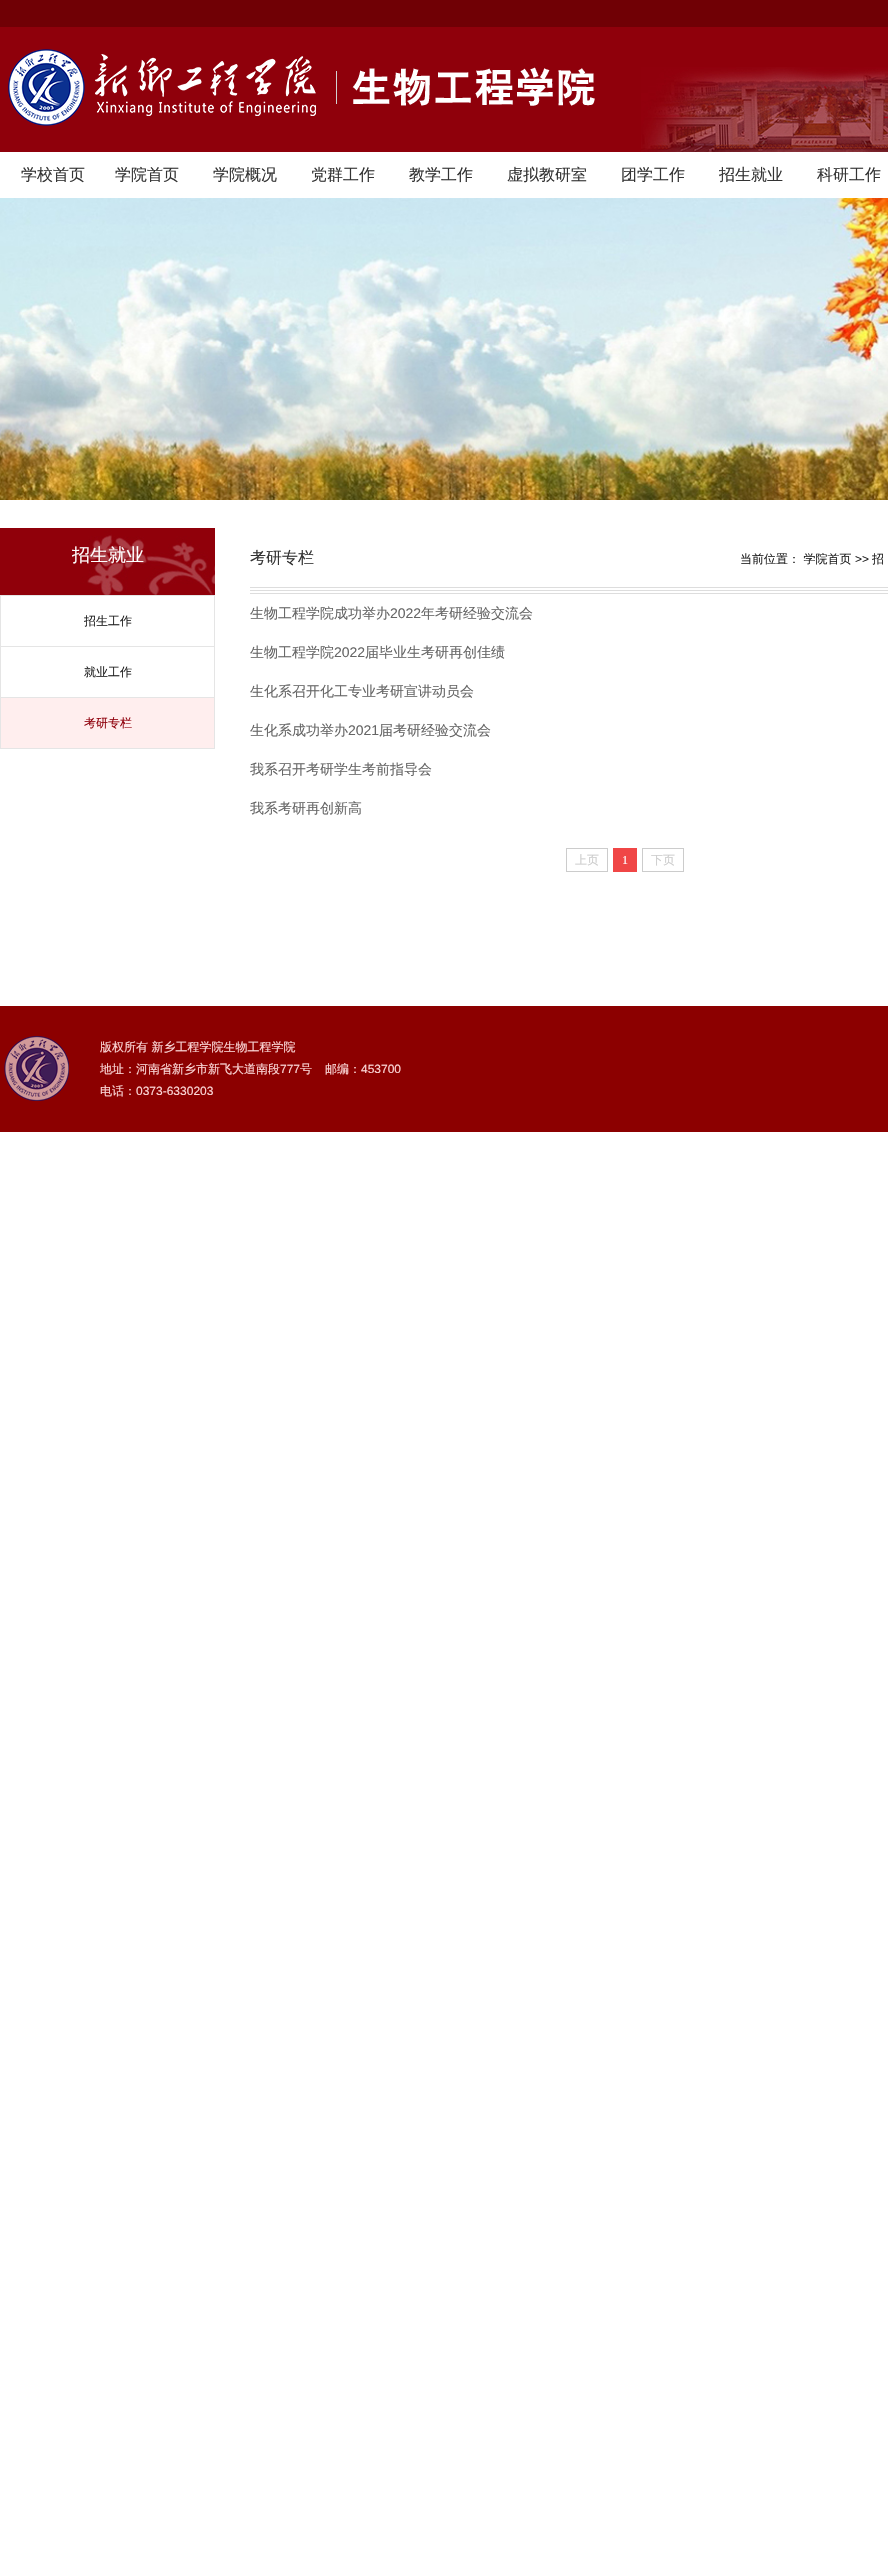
void draw(SkCanvas* canvas) {
  SkPaint paint;
  paint.setAntiAlias(true);
  auto face = [&](const char* family, int weight, float size, bool italic = false) {
    SkFontStyle style(weight, SkFontStyle::kNormal_Width,
      italic ? SkFontStyle::kItalic_Slant : SkFontStyle::kUpright_Slant);
    SkFont result(fontMgr->matchFamilyStyle(family, style), size);
    result.setSubpixel(true);
    return result;
  };
  auto paste = [&](const char* path, float x, float y, float w, float h) {
    auto image = SkImages::DeferredFromEncodedData(SkData::MakeFromFileName(path));
    canvas->drawImageRect(image, SkRect::MakeXYWH(x, y, w, h), SkSamplingOptions());
  };
  canvas->clear(0xffffffff);
  paint.setColor(0xff700005);
  canvas->drawRect(SkRect::MakeXYWH(0, 0, 888, 27), paint);
  paint.setColor(0xff8f000b);
  canvas->drawRect(SkRect::MakeXYWH(0, 27, 888, 125), paint);
  paste("img/1.png", 641, 67, 247, 85);
  paste("img/2.png", 8, 49, 587, 77);
  paste("img/3.png", 0, 198, 888, 302);
  paste("img/4.png", 0, 528, 215, 67);
  {
    const struct { float x, y, w, h; SkColor color; } items[] = {
      {0, 595, 215, 1, 0xffe5e5e5},
      {214, 595, 1, 154, 0xffe5e5e5},
      {0, 595, 1, 154, 0xffe5e5e5},
      {1, 646, 213, 1, 0xffe5e5e5},
      {1, 697, 213, 1, 0xffe5e5e5},
      {1, 698, 213, 50, 0xffffeeee},
      {1, 748, 213, 1, 0xffe5e5e5},
    };
    for (auto [x, y, w, h, color] : items) {
      paint.setColor(color);
      canvas->drawRect(SkRect::MakeXYWH(x, y, w, h), paint);
    }
  }
  paste("img/5.png", 250, 587, 638, 7);
  paint.setStroke(true);
  paint.setStrokeWidth(1);
  paint.setColor(0xffcccccc);
  canvas->drawRect(SkRect::MakeXYWH(566.5f, 848.5f, 41, 23), paint);
  paint.setStroke(false);
  paint.setColor(0xfff04646);
  canvas->drawRect(SkRect::MakeXYWH(613, 848, 24, 24), paint);
  paint.setStroke(true);
  paint.setColor(0xffcccccc);
  canvas->drawRect(SkRect::MakeXYWH(642.5f, 848.5f, 41, 23), paint);
  paint.setStroke(false);
  paint.setColor(0xff8c0000);
  canvas->drawRect(SkRect::MakeXYWH(0, 1006, 888, 126), paint);
  paste("img/6.png", 4, 1036, 65, 65);
  auto f0 = face("WenQuanYi Zen Hei", 500, 16);
  paint.setColor(0xff333333);
  {
    const struct { const char* s; float x, y; } items[] = {
      {"学校首页", 21, 180},
      {"学院首页", 115, 180},
      {"学院概况", 213, 180},
      {"党群工作", 311, 180},
      {"教学工作", 409, 180},
      {"虚拟教研室", 507, 180},
      {"团学工作", 621, 180},
      {"招生就业", 719, 180},
      {"科研工作", 817, 180},
    };
    for (auto [s, x, y] : items) {
      canvas->drawString(s, x, y, f0, paint);
    }
  }
  auto f1 = face("WenQuanYi Zen Hei", 500, 18);
  paint.setColor(0xffffffff);
  canvas->drawString("招生就业", 72, 561, f1, paint);
  auto f2 = face("WenQuanYi Zen Hei", 500, 12);
  paint.setColor(0xff222222);
  canvas->drawString("招生工作", 84, 625, f2, paint);
  canvas->drawString("就业工作", 84, 676, f2, paint);
  paint.setColor(0xff8f000b);
  canvas->drawString("考研专栏", 84, 727, f2, paint);
  paint.setColor(0xff333333);
  canvas->drawString("考研专栏", 250, 563, f0, paint);
  paint.setColor(0xff222222);
  canvas->drawString("当前位置： 学院首页", 740, 563, f2, paint);
  auto f3 = face("Liberation Sans", 400, 12);
  canvas->drawString(">>", 855, 563, f3, paint);
  canvas->drawString("招", 872, 563, f2, paint);
  auto f4 = face("WenQuanYi Zen Hei", 500, 14);
  paint.setColor(0xff666666);
  canvas->drawString("生物工程学院成功举办", 250, 618, f4, paint);
  auto f5 = face("Liberation Sans", 400, 14);
  canvas->drawString("2022", 390, 618, f5, paint);
  canvas->drawString("年考研经验交流会", 421, 618, f4, paint);
  canvas->drawString("生物工程学院", 250, 657, f4, paint);
  canvas->drawString("2022", 334, 657, f5, paint);
  {
    const struct { const char* s; float x, y; } items[] = {
      {"届毕业生考研再创佳绩", 365, 657},
      {"生化系召开化工专业考研宣讲动员会", 250, 696},
      {"生化系成功举办", 250, 735},
    };
    for (auto [s, x, y] : items) {
      canvas->drawString(s, x, y, f4, paint);
    }
  }
  canvas->drawString("2021", 348, 735, f5, paint);
  {
    const struct { const char* s; float x, y; } items[] = {
      {"届考研经验交流会", 379, 735},
      {"我系召开考研学生考前指导会", 250, 774},
      {"我系考研再创新高", 250, 813},
    };
    for (auto [s, x, y] : items) {
      canvas->drawString(s, x, y, f4, paint);
    }
  }
  paint.setColor(0xffcccccc);
  canvas->drawString("上页", 575, 864, f2, paint);
  auto f6 = face("Liberation Serif", 400, 12);
  paint.setColor(0xffffffff);
  canvas->drawString("1", 622, 864, f6, paint);
  paint.setColor(0xffcccccc);
  canvas->drawString("下页", 651, 864, f2, paint);
  paint.setColor(0xfffcd8d8);
  canvas->drawString("版权所有 新乡工程学院生物工程学院", 100, 1051, f2, paint);
  canvas->drawString("地址：河南省新乡市新飞大道南段", 100, 1073, f2, paint);
  canvas->drawString("777", 280, 1073, f3, paint);
  canvas->drawString("号", 300, 1073, f2, paint);
  canvas->drawString("邮编：", 325, 1073, f2, paint);
  canvas->drawString("453700", 361, 1073, f3, paint);
  canvas->drawString("电话：", 100, 1095, f2, paint);
  canvas->drawString("0373-6330203", 136, 1095, f3, paint);
}
